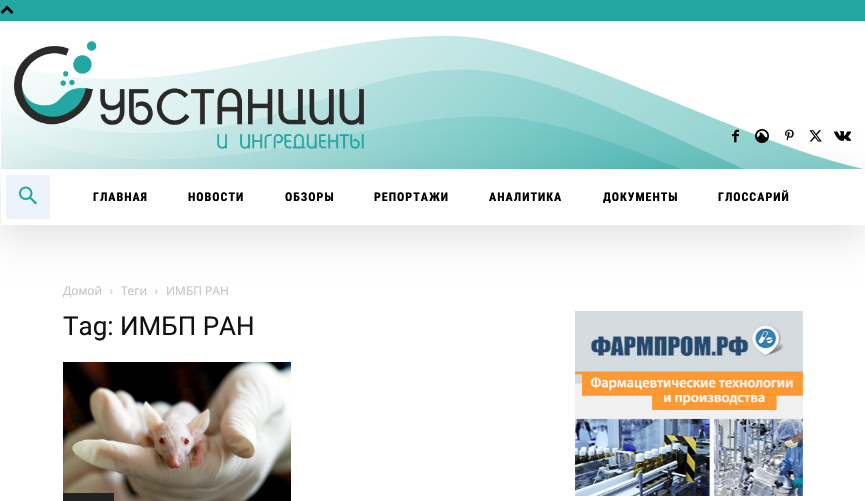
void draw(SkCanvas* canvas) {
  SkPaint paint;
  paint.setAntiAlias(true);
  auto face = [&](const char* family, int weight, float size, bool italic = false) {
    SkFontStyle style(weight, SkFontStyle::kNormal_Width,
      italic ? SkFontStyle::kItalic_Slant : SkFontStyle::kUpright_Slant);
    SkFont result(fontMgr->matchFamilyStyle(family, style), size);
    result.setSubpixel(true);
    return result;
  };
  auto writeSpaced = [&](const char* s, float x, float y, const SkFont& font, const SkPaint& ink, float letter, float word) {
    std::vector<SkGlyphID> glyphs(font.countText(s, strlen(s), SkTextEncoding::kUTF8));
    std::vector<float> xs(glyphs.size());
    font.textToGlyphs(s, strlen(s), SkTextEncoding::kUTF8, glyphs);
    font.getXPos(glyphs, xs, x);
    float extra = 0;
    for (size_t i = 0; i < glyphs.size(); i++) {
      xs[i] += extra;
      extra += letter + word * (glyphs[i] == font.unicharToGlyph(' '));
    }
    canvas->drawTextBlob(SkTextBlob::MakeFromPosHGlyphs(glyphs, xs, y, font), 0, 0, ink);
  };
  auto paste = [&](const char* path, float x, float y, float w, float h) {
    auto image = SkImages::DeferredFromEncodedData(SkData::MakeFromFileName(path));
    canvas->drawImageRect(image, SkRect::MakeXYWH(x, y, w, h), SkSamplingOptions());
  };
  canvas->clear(0xffffffff);
  paint.setColor(0xff24a7a2);
  canvas->drawRect(SkRect::MakeXYWH(0, 0, 865, 21), paint);
  paste("img/1.png", 0, 5, 14, 9);
  {
    const SkColor colors[] = {0xff24a7a2, 0xffffffff};
    const float stops[] = {0, 1};
    const SkPoint ends[] = {{693, 369}, {173, -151}};
    paint.setShader(SkGradientShader::MakeLinear(ends, colors, stops, 2, SkTileMode::kClamp));
    paint.setAlpha(255);
  }
  canvas->drawRect(SkRect::MakeXYWH(1, 35, 863, 134), paint);
  paste("img/2.png", 1, 21, 864, 148);
  paste("img/3.png", 14, 41, 350, 108);
  paste("img/4.png", 732, 129, 7, 14);
  paste("img/5.png", 755, 129, 14, 14);
  paste("img/6.png", 785, 129, 9, 12);
  paste("img/7.png", 809, 130, 13, 12);
  paste("img/8.png", 834, 131, 17, 10);
  paste("img/10.png", 110, 289, 3, 5);
  paste("img/10.png", 155, 289, 3, 5);
  paint.setShader(nullptr);
  paint.setColor(0x1f000000);
  paint.setMaskFilter(SkMaskFilter::MakeBlur(kNormal_SkBlurStyle, 20));
  canvas->drawRect(SkRect::MakeXYWH(0, 181, 865, 56), paint);
  paint.setMaskFilter(nullptr);
  paint.setColor(0xffffffff);
  canvas->drawRect(SkRect::MakeXYWH(1, 169, 864, 56), paint);
  paint.setColor(0xffecf3fb);
  canvas->drawRect(SkRect::MakeXYWH(6, 175, 44, 44), paint);
  paste("img/9.png", 19, 186, 18, 19);
  paste("img/11.png", 63, 362, 228, 139);
  paint.setColor(0xff222222);
  canvas->drawRect(SkRect::MakeXYWH(63, 493, 51, 8), paint);
  paste("img/12.png", 575, 311, 228, 185);
  auto f0 = face("Roboto Condensed", 800, 12);
  paint.setColor(0xff000000);
  {
    const struct { const char* s; float x, y; } items[] = {
      {"ГЛАВНАЯ", 93, 201},
      {"НОВОСТИ", 188, 201},
      {"ОБЗОРЫ", 285, 201},
      {"РЕПОРТАЖИ", 374, 201},
      {"АНАЛИТИКА", 489, 201},
      {"ДОКУМЕНТЫ", 603, 201},
      {"ГЛОССАРИЙ", 718, 201},
    };
    for (auto [s, x, y] : items) {
      writeSpaced(s, x, y, f0, paint, 1, 0);
    }
  }
  auto f1 = face("Open Sans", 400, 12);
  paint.setColor(0xffc3c3c3);
  {
    const struct { const char* s; float x, y; } items[] = {
      {"Домой", 63, 295},
      {"Теги", 121, 295},
      {"ИМБП РАН", 166, 295},
    };
    for (auto [s, x, y] : items) {
      canvas->drawString(s, x, y, f1, paint);
    }
  }
  auto f2 = face("Roboto", 400, 26);
  paint.setColor(0xff111111);
  canvas->drawString("Tag: ИМБП РАН", 63, 335, f2, paint);
}
